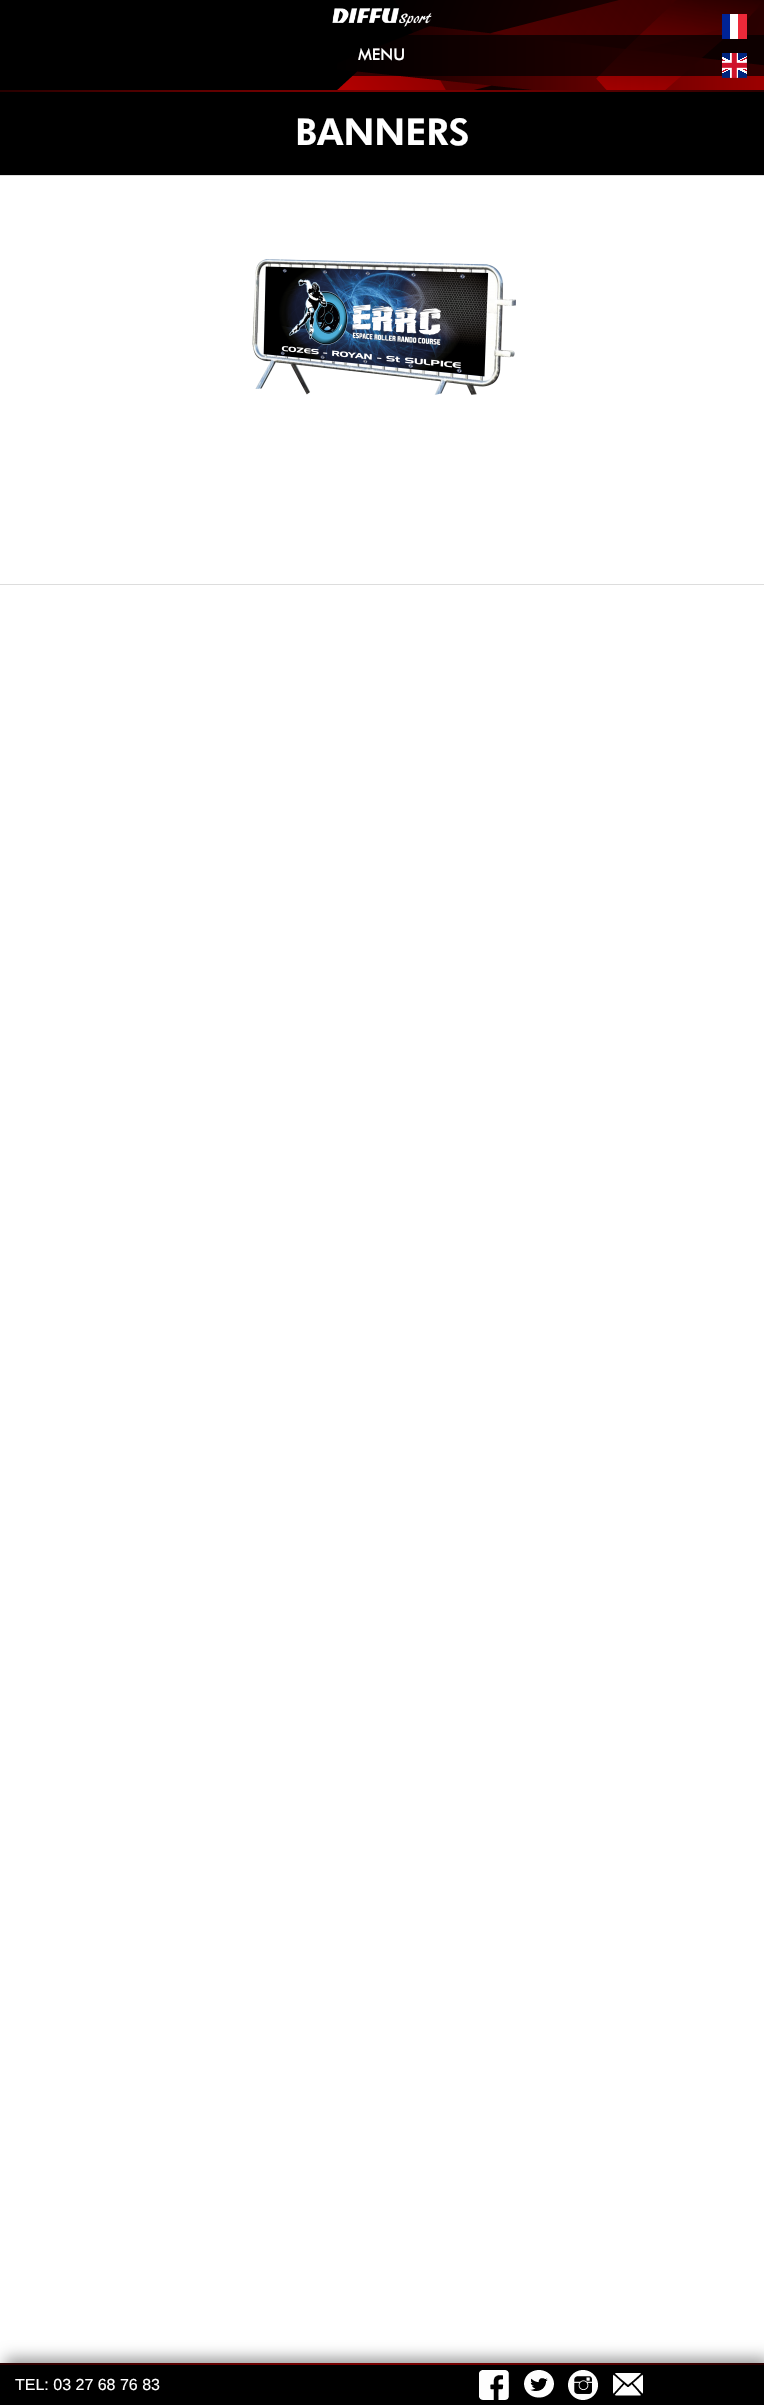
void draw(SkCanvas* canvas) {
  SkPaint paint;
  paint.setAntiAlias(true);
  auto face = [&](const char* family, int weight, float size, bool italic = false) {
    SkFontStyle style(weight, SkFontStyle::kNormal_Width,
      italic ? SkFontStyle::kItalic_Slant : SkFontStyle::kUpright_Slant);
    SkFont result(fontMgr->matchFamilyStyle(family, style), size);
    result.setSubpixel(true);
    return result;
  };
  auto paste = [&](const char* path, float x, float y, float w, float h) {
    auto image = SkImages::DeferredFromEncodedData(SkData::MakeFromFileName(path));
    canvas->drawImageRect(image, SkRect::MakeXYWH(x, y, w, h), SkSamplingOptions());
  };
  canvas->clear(0xffffffff);
  paint.setColor(0xff000000);
  canvas->drawRect(SkRect::MakeXYWH(0, 0, 764, 90), paint);
  paste("img/1.png", 337, 0, 427, 90);
  paste("img/2.png", 332, 8, 100, 19);
  paint.setColor(0xb3000000);
  canvas->drawRect(SkRect::MakeXYWH(337, 35, 427, 41), paint);
  paste("img/3.png", 722, 14, 25, 25);
  paste("img/4.png", 722, 53, 25, 25);
  {
    const SkColor colors[] = {0xffbb0000, 0xff000000};
    const float stops[] = {0, 1};
    SkMatrix m = SkMatrix::Translate(382, 91).preScale(540, 1.4f);
    paint.setShader(SkGradientShader::MakeRadial({0, 0}, 1, colors, stops, 2, SkTileMode::kClamp, 0, &m));
    paint.setAlpha(255);
  }
  canvas->drawRect(SkRect::MakeXYWH(0, 90, 764, 2), paint);
  paint.setShader(nullptr);
  paint.setColor(0xff000000);
  canvas->drawRect(SkRect::MakeXYWH(0, 92, 764, 83), paint);
  paint.setStroke(true);
  paint.setStrokeWidth(1);
  paint.setColor(0xffdddddd);
  canvas->drawRect(SkRect::MakeXYWH(-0.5f, 175.5f, 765, 409), paint);
  paste("img/5.png", 252, 259, 264, 136);
  paint.setStroke(false);
  paint.setColor(0x66000000);
  paint.setMaskFilter(SkMaskFilter::MakeBlur(kNormal_SkBlurStyle, 7.5f));
  canvas->drawRect(SkRect::MakeXYWH(5, 2358, 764, 40), paint);
  paint.setMaskFilter(nullptr);
  paint.setColor(0xff000000);
  canvas->drawRect(SkRect::MakeXYWH(0, 2365, 764, 40), paint);
  {
    const SkColor colors[] = {0xffbb0000, 0xff000000};
    const float stops[] = {0, 1};
    SkMatrix m = SkMatrix::Translate(382, 2364).preScale(540, 1.4f);
    paint.setShader(SkGradientShader::MakeRadial({0, 0}, 1, colors, stops, 2, SkTileMode::kClamp, 0, &m));
    paint.setAlpha(255);
  }
  canvas->drawRect(SkRect::MakeXYWH(0, 2363, 764, 2), paint);
  paste("img/6.png", 479, 2370, 30, 30);
  paste("img/7.png", 524, 2370, 30, 28);
  paste("img/8.png", 568, 2370, 30, 30);
  paste("img/9.png", 613, 2373, 30, 23);
  auto f0 = face("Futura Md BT", 500, 16);
  paint.setShader(nullptr);
  paint.setColor(0xffffffff);
  canvas->drawString("MENU", 358, 60, f0, paint);
  auto f1 = face("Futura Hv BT", 900, 37);
  canvas->drawString("BANNERS", 295, 145, f1, paint);
  auto f2 = face("Liberation Sans", 400, 16);
  canvas->drawString("TEL: 03 27 68 76 83", 15, 2390, f2, paint);
}
